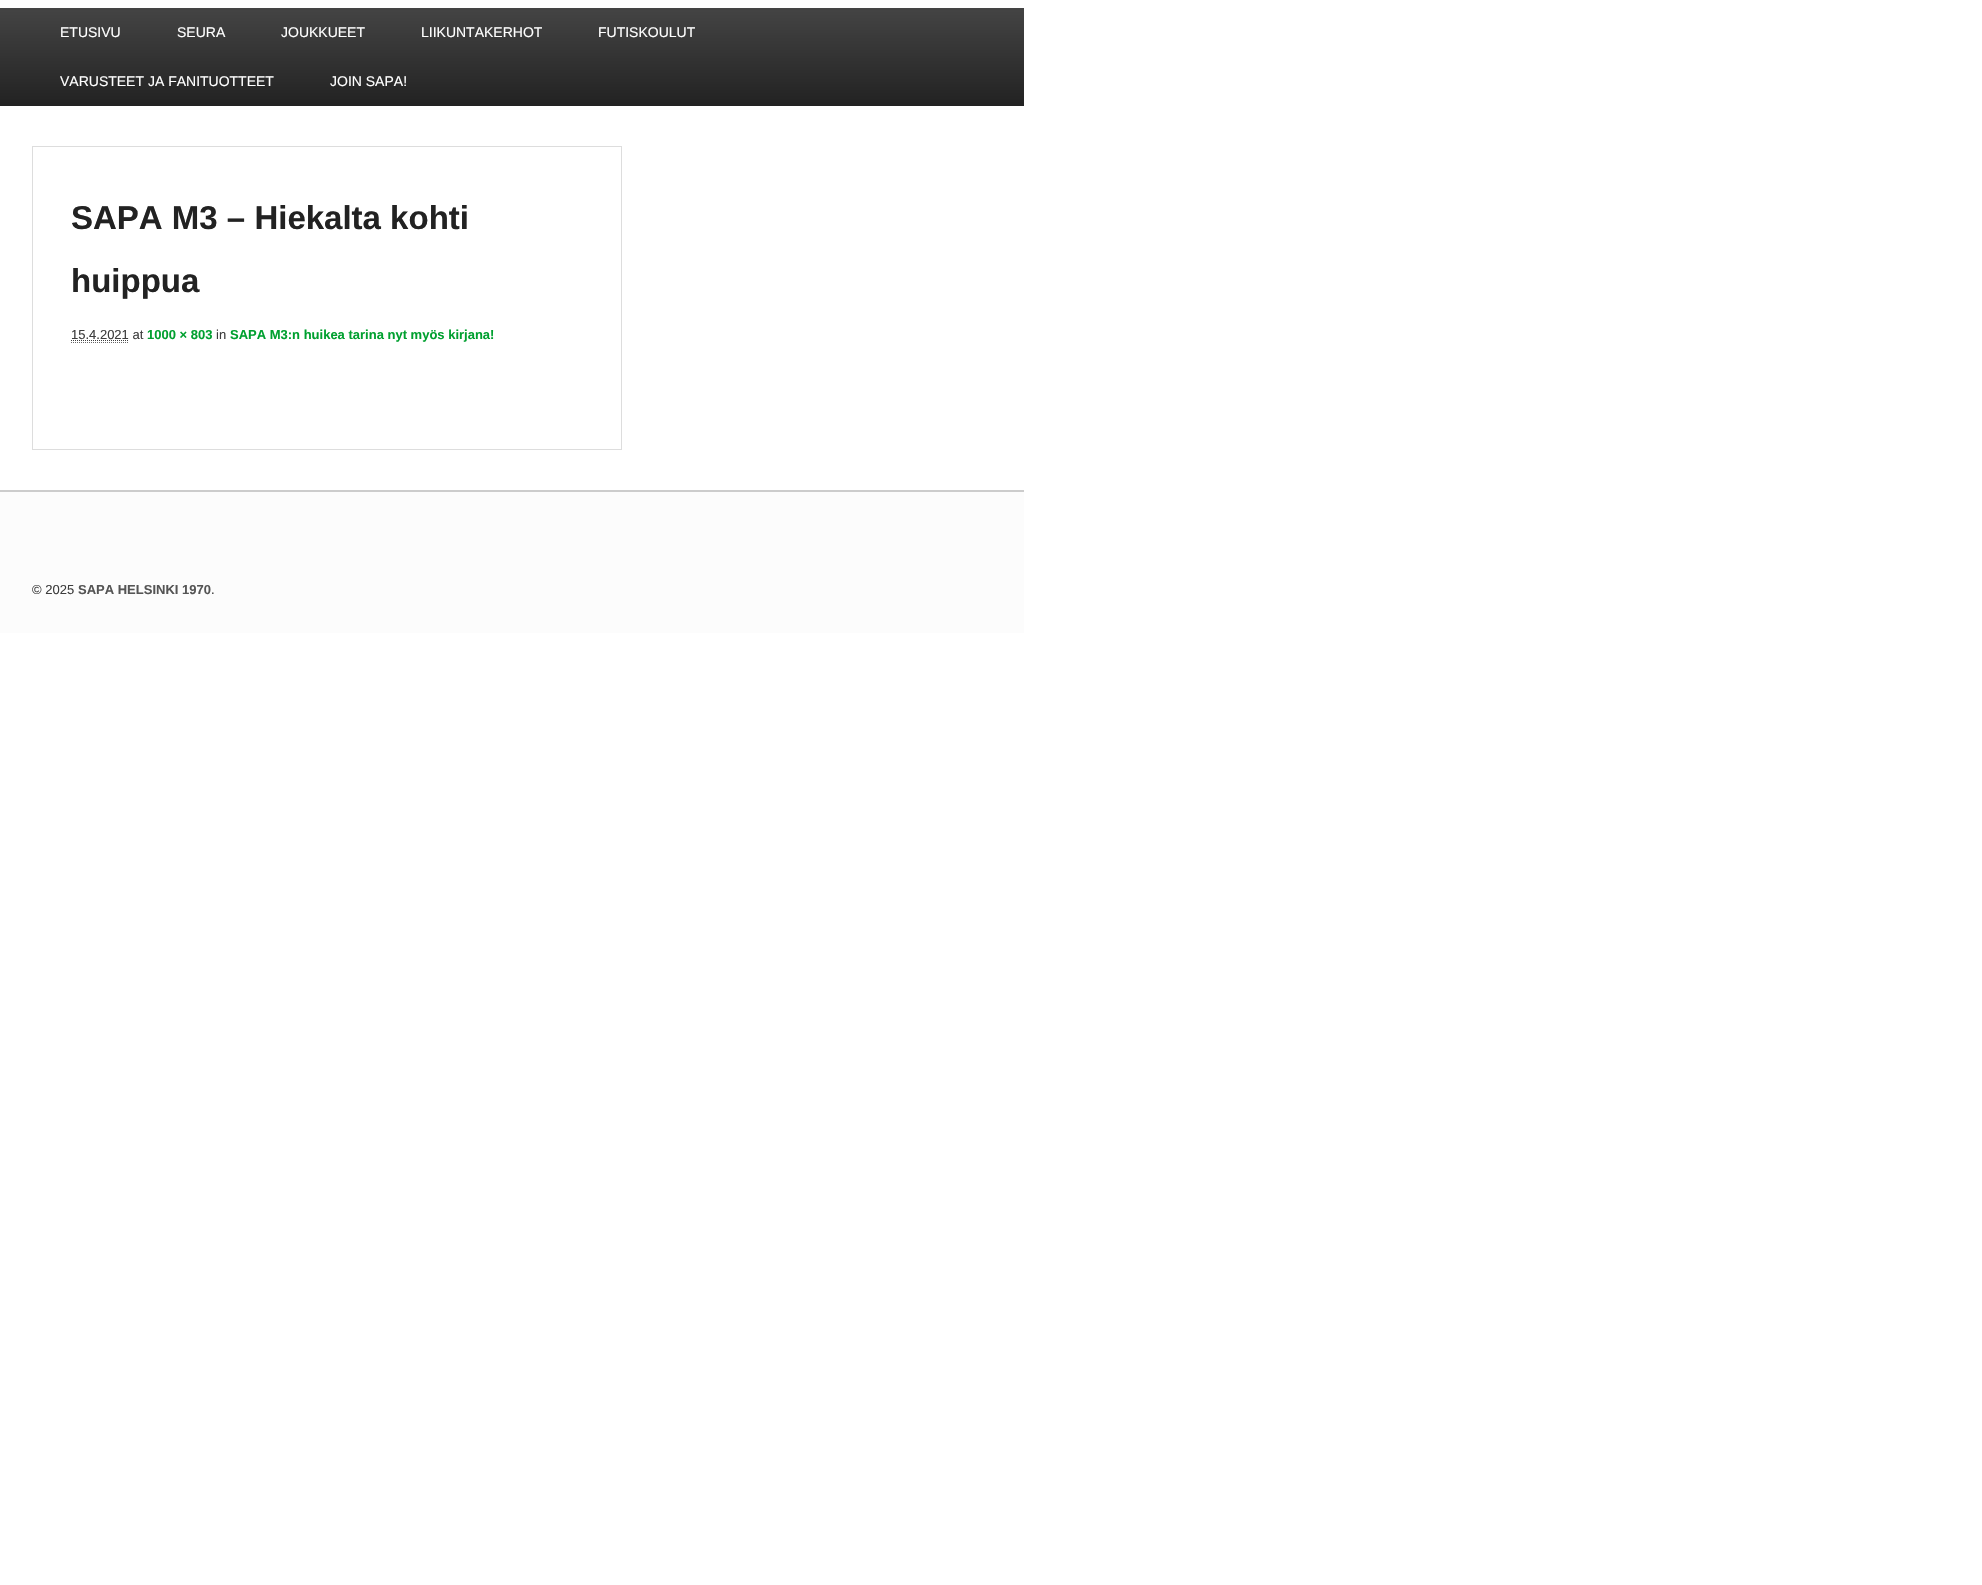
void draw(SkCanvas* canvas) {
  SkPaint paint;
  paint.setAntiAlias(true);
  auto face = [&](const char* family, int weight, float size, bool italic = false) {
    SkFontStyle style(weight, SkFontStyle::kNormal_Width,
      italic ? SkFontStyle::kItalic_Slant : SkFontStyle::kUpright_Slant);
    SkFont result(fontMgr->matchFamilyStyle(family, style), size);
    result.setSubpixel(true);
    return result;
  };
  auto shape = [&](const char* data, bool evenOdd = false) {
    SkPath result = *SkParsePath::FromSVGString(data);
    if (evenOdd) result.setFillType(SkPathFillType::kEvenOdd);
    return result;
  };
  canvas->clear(0xffffffff);
  {
    const SkColor colors[] = {0xff444444, 0xff222222};
    const float stops[] = {0, 1};
    const SkPoint ends[] = {{512, 8}, {512, 106}};
    paint.setShader(SkGradientShader::MakeLinear(ends, colors, stops, 2, SkTileMode::kClamp));
    paint.setAlpha(255);
  }
  canvas->drawRect(SkRect::MakeXYWH(0, 8, 1024, 98), paint);
  paint.setStroke(true);
  paint.setStrokeWidth(1);
  paint.setShader(nullptr);
  paint.setColor(0xffdddddd);
  canvas->drawRect(SkRect::MakeXYWH(32.5f, 146.5f, 589, 303), paint);
  paint.setColor(0xff666666);
  paint.setPathEffect(SkDashPathEffect::Make({{1, 1}}, 0));
  canvas->drawPath(shape("M71 342.5H129"), paint);
  paint.setPathEffect(nullptr);
  paint.setColor(0xff3d3d3d);
  paint.setPathEffect(SkDashPathEffect::Make({{1, 1}}, 0));
  canvas->drawPath(shape("M71 340.5H129"), paint);
  paint.setPathEffect(nullptr);
  paint.setStroke(false);
  paint.setColor(0xffcccccc);
  canvas->drawRect(SkRect::MakeXYWH(0, 490, 1024, 2), paint);
  paint.setColor(0xfffcfcfc);
  canvas->drawRect(SkRect::MakeXYWH(0, 492, 1024, 141), paint);
  auto f0 = face("Liberation Sans", 400, 14);
  paint.setColor(0xffffffff);
  {
    const struct { const char* s; float x, y; } items[] = {
      {"ETUSIVU", 60, 37},
      {"SEURA", 177, 37},
      {"JOUKKUEET", 281, 37},
      {"LIIKUNTAKERHOT", 421, 37},
      {"FUTISKOULUT", 598, 37},
      {"VARUSTEET JA FANITUOTTEET", 60, 86},
      {"JOIN SAPA!", 330, 86},
    };
    for (auto [s, x, y] : items) {
      canvas->drawString(s, x, y, f0, paint);
    }
  }
  auto f1 = face("Liberation Sans", 700, 33);
  paint.setColor(0xff222222);
  canvas->drawString("SAPA M3 – Hiekalta kohti", 71, 229, f1, paint);
  canvas->drawString("huippua", 71, 292, f1, paint);
  auto f2 = face("Liberation Sans", 400, 13);
  paint.setColor(0xff3d3d3d);
  canvas->drawString("15.4.2021 at", 71, 339, f2, paint);
  auto f3 = face("Liberation Sans", 700, 13);
  paint.setColor(0xff00a02f);
  canvas->drawString("1000 × 803", 147, 339, f3, paint);
  paint.setColor(0xff3d3d3d);
  canvas->drawString("in", 216, 339, f2, paint);
  paint.setColor(0xff00a02f);
  canvas->drawString("SAPA M3:n huikea tarina nyt myös kirjana!", 230, 339, f3, paint);
  paint.setColor(0xff3d3d3d);
  canvas->drawString("© 2025", 32, 594, f2, paint);
  paint.setColor(0xff555555);
  canvas->drawString("SAPA HELSINKI 1970", 78, 594, f3, paint);
  paint.setColor(0xff3d3d3d);
  canvas->drawString(".", 211, 594, f2, paint);
}
